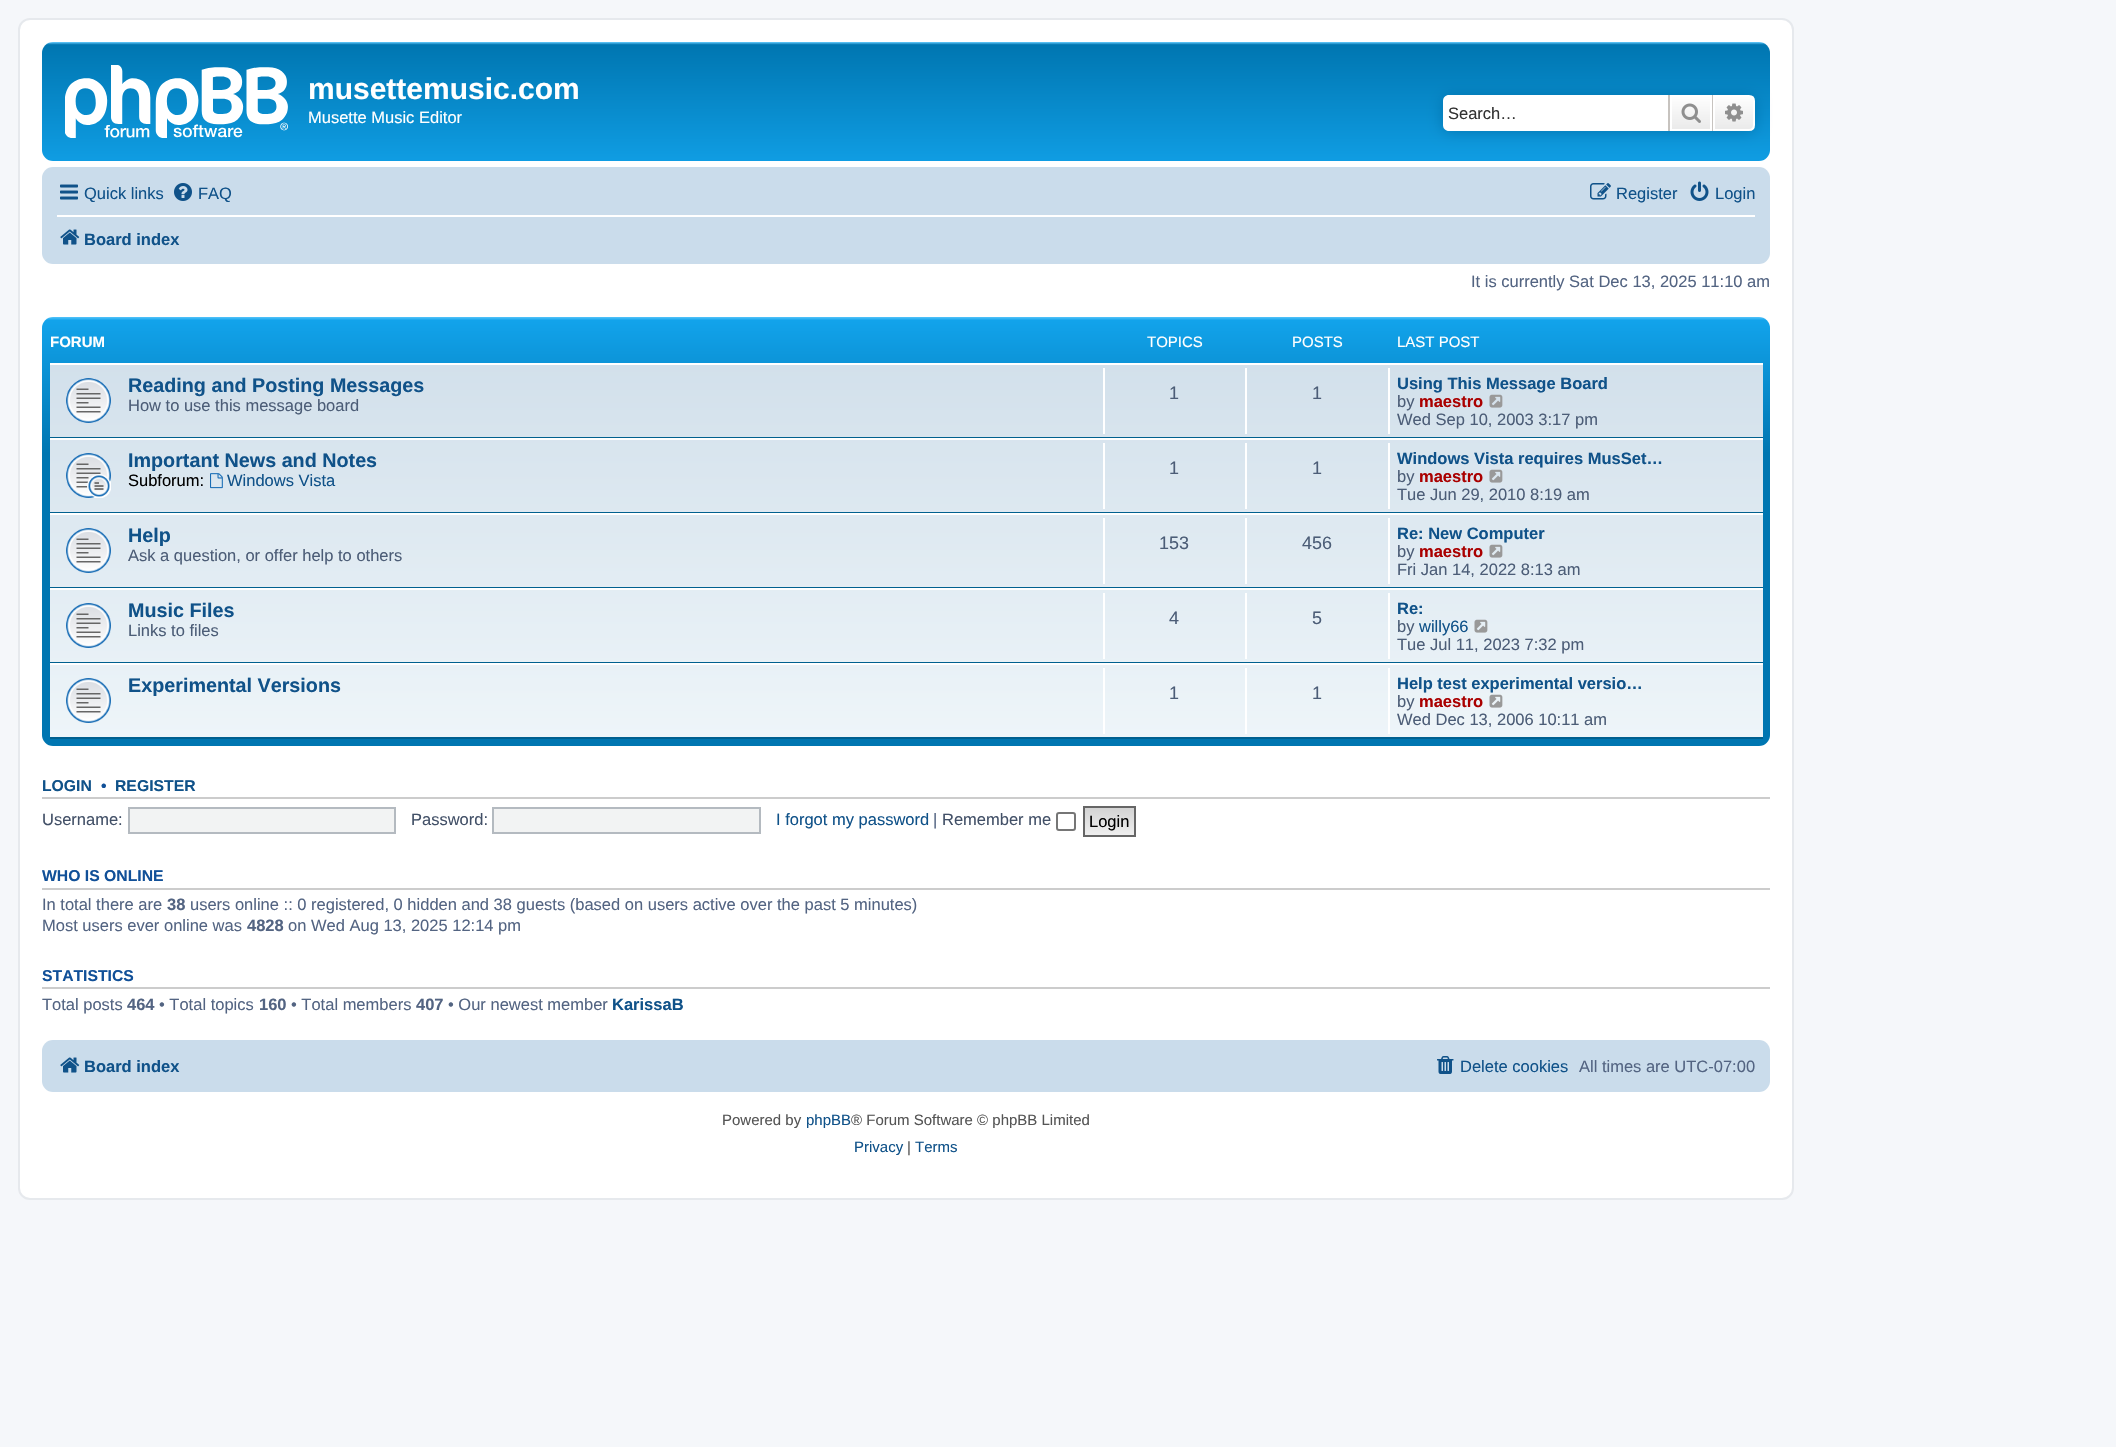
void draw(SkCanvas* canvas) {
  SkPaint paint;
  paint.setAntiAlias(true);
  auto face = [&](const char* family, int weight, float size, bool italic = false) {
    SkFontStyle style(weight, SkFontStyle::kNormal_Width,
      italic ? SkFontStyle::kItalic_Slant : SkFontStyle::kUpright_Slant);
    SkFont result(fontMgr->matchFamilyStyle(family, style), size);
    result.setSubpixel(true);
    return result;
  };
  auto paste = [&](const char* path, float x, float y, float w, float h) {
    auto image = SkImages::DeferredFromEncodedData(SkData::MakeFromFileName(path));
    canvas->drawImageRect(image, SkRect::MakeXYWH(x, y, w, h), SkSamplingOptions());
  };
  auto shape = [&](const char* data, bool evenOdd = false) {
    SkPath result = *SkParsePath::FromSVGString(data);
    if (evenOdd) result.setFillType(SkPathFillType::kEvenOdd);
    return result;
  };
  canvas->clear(0xfff5f7fa);
  paint.setColor(0xffffffff);
  canvas->drawRoundRect(SkRect::MakeXYWH(19, 19, 1774, 1180), 11, 11, paint);
  paint.setStroke(true);
  paint.setStrokeWidth(2);
  paint.setColor(0xffe6e9ed);
  canvas->drawRoundRect(SkRect::MakeXYWH(19, 19, 1774, 1180), 11, 11, paint);
  paint.setStroke(false);
  {
    const SkColor colors[] = {0xff6aceff, 0xff0076b1, 0xff12a3eb};
    const float stops[] = {0, 0.02f, 1};
    const SkPoint ends[] = {{906, 42}, {906, 180}};
    paint.setShader(SkGradientShader::MakeLinear(ends, colors, stops, 3, SkTileMode::kClamp));
    paint.setAlpha(255);
  }
  canvas->drawRoundRect(SkRect::MakeXYWH(42, 42, 1728, 119), 11, 11, paint);
  paste("img/1.png", 65, 65, 223, 73);
  paint.setShader(nullptr);
  paint.setColor(0xff0075b0);
  paint.setMaskFilter(SkMaskFilter::MakeBlur(kNormal_SkBlurStyle, 7.5f));
  canvas->drawRoundRect(SkRect::MakeXYWH(1443, 95, 312, 36), 6, 6, paint);
  paint.setMaskFilter(nullptr);
  paint.setColor(0xffffffff);
  canvas->drawPath(shape("M1449 95H1668V131H1449C1445.5 131 1443 128.5 1443 125V101C1443 97.5 1445.5 95 1449 95Z"), paint);
  {
    const SkColor colors[] = {0xffffffff, 0xffe9e9e9};
    const float stops[] = {0, 1};
    const SkPoint ends[] = {{1691, 95}, {1691, 131}};
    paint.setShader(SkGradientShader::MakeLinear(ends, colors, stops, 2, SkTileMode::kClamp));
    paint.setAlpha(255);
  }
  canvas->drawRect(SkRect::MakeXYWH(1672, 97, 38, 32), paint);
  paint.setStroke(true);
  paint.setShader(nullptr);
  paint.setColor(0xffffffff);
  canvas->drawRect(SkRect::MakeXYWH(1671, 96, 40, 34), paint);
  paint.setStroke(false);
  paint.setColor(0xffc7c3bf);
  canvas->drawRect(SkRect::MakeXYWH(1712, 95, 1, 36), paint);
  canvas->drawRect(SkRect::MakeXYWH(1668, 95, 2, 36), paint);
  paste("img/2.png", 1681, 103, 20, 20);
  {
    const SkColor colors[] = {0xffffffff, 0xffe9e9e9};
    const float stops[] = {0, 1};
    const SkPoint ends[] = {{1734, 95}, {1734, 131}};
    paint.setShader(SkGradientShader::MakeLinear(ends, colors, stops, 2, SkTileMode::kClamp));
    paint.setAlpha(255);
  }
  canvas->drawPath(shape("M1714 96H1749C1752 96 1754 98 1754 101V125C1754 128 1752 130 1749 130H1714Z"), paint);
  paint.setStroke(true);
  paint.setShader(nullptr);
  paint.setColor(0xffffffff);
  canvas->drawPath(shape("M1714 96H1749C1752 96 1754 98 1754 101V125C1754 128 1752 130 1749 130H1714Z"), paint);
  paste("img/3.png", 1725, 103, 18, 19);
  paint.setStroke(false);
  paint.setColor(0xffcadceb);
  canvas->drawRoundRect(SkRect::MakeXYWH(42, 167, 1728, 97), 11, 11, paint);
  paste("img/4.png", 60, 184, 18, 16);
  paste("img/5.png", 174, 183, 18, 18);
  paste("img/6.png", 1590, 183, 21, 17);
  paste("img/7.png", 1690, 181, 19, 20);
  paint.setColor(0xffffffff);
  canvas->drawRect(SkRect::MakeXYWH(57, 215, 1698, 2), paint);
  paste("img/8.png", 60, 229, 20, 16);
  {
    const SkColor colors[] = {0xff6aceff, 0xff12a3eb, 0xff0076b1, 0xff0076b1};
    const float stops[] = {0, 0.01f, 0.32f, 1};
    const SkPoint ends[] = {{906, 316}, {906, 746}};
    paint.setShader(SkGradientShader::MakeLinear(ends, colors, stops, 4, SkTileMode::kClamp));
    paint.setAlpha(255);
  }
  canvas->drawRoundRect(SkRect::MakeXYWH(42, 317, 1728, 429), 11, 11, paint);
  {
    const SkColor colors[] = {0xffd2e0eb, 0xffeef5f9};
    const float stops[] = {0, 1};
    const SkPoint ends[] = {{906, 363}, {906, 738}};
    paint.setShader(SkGradientShader::MakeLinear(ends, colors, stops, 2, SkTileMode::kClamp));
    paint.setAlpha(255);
  }
  canvas->drawRect(SkRect::MakeXYWH(50, 365, 1713, 372), paint);
  paint.setShader(nullptr);
  paint.setColor(0xffffffff);
  canvas->drawRect(SkRect::MakeXYWH(50, 363, 1713, 2), paint);
  paint.setColor(0xff00608f);
  canvas->drawRect(SkRect::MakeXYWH(50, 437, 1713, 1), paint);
  paste("img/9.png", 66, 378, 45, 45);
  {
    const struct { float x, y, w, h; SkColor color; } items[] = {
      {1103, 368, 2, 66, 0xffffffff},
      {1245, 368, 2, 66, 0xffffffff},
      {1388, 368, 2, 66, 0xffffffff},
    };
    for (auto [x, y, w, h, color] : items) {
      paint.setColor(color);
      canvas->drawRect(SkRect::MakeXYWH(x, y, w, h), paint);
    }
  }
  paste("img/10.png", 1489, 394, 14, 14);
  canvas->drawRect(SkRect::MakeXYWH(50, 438, 1713, 2), paint);
  paint.setColor(0xff00608f);
  canvas->drawRect(SkRect::MakeXYWH(50, 512, 1713, 1), paint);
  paste("img/11.png", 66, 453, 45, 45);
  paste("img/12.png", 210, 473, 13, 16);
  {
    const struct { float x, y, w, h; SkColor color; } items[] = {
      {1103, 443, 2, 66, 0xffffffff},
      {1245, 443, 2, 66, 0xffffffff},
      {1388, 443, 2, 66, 0xffffffff},
    };
    for (auto [x, y, w, h, color] : items) {
      paint.setColor(color);
      canvas->drawRect(SkRect::MakeXYWH(x, y, w, h), paint);
    }
  }
  paste("img/13.png", 1489, 469, 14, 14);
  canvas->drawRect(SkRect::MakeXYWH(50, 513, 1713, 2), paint);
  paint.setColor(0xff00608f);
  canvas->drawRect(SkRect::MakeXYWH(50, 587, 1713, 1), paint);
  paste("img/14.png", 66, 528, 45, 45);
  {
    const struct { float x, y, w, h; SkColor color; } items[] = {
      {1103, 518, 2, 66, 0xffffffff},
      {1245, 518, 2, 66, 0xffffffff},
      {1388, 518, 2, 66, 0xffffffff},
    };
    for (auto [x, y, w, h, color] : items) {
      paint.setColor(color);
      canvas->drawRect(SkRect::MakeXYWH(x, y, w, h), paint);
    }
  }
  paste("img/15.png", 1489, 544, 14, 14);
  canvas->drawRect(SkRect::MakeXYWH(50, 588, 1713, 2), paint);
  paint.setColor(0xff00608f);
  canvas->drawRect(SkRect::MakeXYWH(50, 662, 1713, 1), paint);
  paste("img/16.png", 66, 603, 45, 45);
  {
    const struct { float x, y, w, h; SkColor color; } items[] = {
      {1103, 593, 2, 66, 0xffffffff},
      {1245, 593, 2, 66, 0xffffffff},
      {1388, 593, 2, 66, 0xffffffff},
    };
    for (auto [x, y, w, h, color] : items) {
      paint.setColor(color);
      canvas->drawRect(SkRect::MakeXYWH(x, y, w, h), paint);
    }
  }
  paste("img/17.png", 1474, 619, 14, 14);
  canvas->drawRect(SkRect::MakeXYWH(50, 663, 1713, 2), paint);
  paint.setColor(0xff00608f);
  canvas->drawRect(SkRect::MakeXYWH(50, 737, 1713, 2), paint);
  paste("img/18.png", 66, 678, 45, 45);
  {
    const struct { float x, y, w, h; SkColor color; } items[] = {
      {1103, 668, 2, 66, 0xffffffff},
      {1245, 668, 2, 66, 0xffffffff},
      {1388, 668, 2, 66, 0xffffffff},
    };
    for (auto [x, y, w, h, color] : items) {
      paint.setColor(color);
      canvas->drawRect(SkRect::MakeXYWH(x, y, w, h), paint);
    }
  }
  paste("img/19.png", 1489, 694, 14, 14);
  paint.setColor(0xffcccccc);
  canvas->drawRect(SkRect::MakeXYWH(42, 797, 1728, 2), paint);
  paint.setColor(0xfff2f3f3);
  canvas->drawRect(SkRect::MakeXYWH(129, 808, 266, 25), paint);
  paint.setStroke(true);
  paint.setColor(0xffb4bac0);
  canvas->drawRect(SkRect::MakeXYWH(129, 808, 266, 25), paint);
  paint.setStroke(false);
  paint.setColor(0xfff2f3f3);
  canvas->drawRect(SkRect::MakeXYWH(493, 808, 267, 25), paint);
  paint.setStroke(true);
  paint.setColor(0xffb4bac0);
  canvas->drawRect(SkRect::MakeXYWH(493, 808, 267, 25), paint);
  paint.setColor(0xff767676);
  canvas->drawRoundRect(SkRect::MakeXYWH(1057, 813, 18, 17), 2, 2, paint);
  paint.setStroke(false);
  {
    const SkColor colors[] = {0xffd2d2d2, 0xffefefef};
    const float stops[] = {0, 1};
    const SkPoint ends[] = {{1109, 807}, {1109, 836}};
    paint.setShader(SkGradientShader::MakeLinear(ends, colors, stops, 2, SkTileMode::kClamp));
    paint.setAlpha(255);
  }
  canvas->drawRect(SkRect::MakeXYWH(1085, 808, 49, 27), paint);
  paint.setStroke(true);
  paint.setShader(nullptr);
  paint.setColor(0xff666666);
  canvas->drawRect(SkRect::MakeXYWH(1084, 807, 51, 29), paint);
  paint.setStroke(false);
  paint.setColor(0xffcccccc);
  canvas->drawRect(SkRect::MakeXYWH(42, 888, 1728, 2), paint);
  canvas->drawRect(SkRect::MakeXYWH(42, 987, 1728, 2), paint);
  paint.setColor(0xffcadceb);
  canvas->drawRoundRect(SkRect::MakeXYWH(42, 1040, 1728, 52), 11, 11, paint);
  paste("img/8.png", 60, 1057, 20, 16);
  paste("img/20.png", 1437, 1056, 17, 18);
  auto f0 = face("Liberation Sans", 700, 30);
  paint.setColor(0xffffffff);
  canvas->drawString("musettemusic.com", 308, 99, f0, paint);
  auto f1 = face("Liberation Sans", 400, 16.5f);
  canvas->drawString("Musette Music Editor", 308, 123, f1, paint);
  paint.setColor(0xff333333);
  canvas->drawString("Search…", 1448, 119, f1, paint);
  paint.setColor(0xff105289);
  {
    const struct { const char* s; float x, y; } items[] = {
      {"Quick links", 84, 199},
      {"FAQ", 198, 199},
      {"Register", 1616, 199},
      {"Login", 1715, 199},
    };
    for (auto [s, x, y] : items) {
      canvas->drawString(s, x, y, f1, paint);
    }
  }
  auto f2 = face("Liberation Sans", 700, 16.5f);
  canvas->drawString("Board index", 84, 245, f2, paint);
  paint.setColor(0xff536482);
  canvas->drawString("It is currently Sat Dec 13, 2025 11:10 am", 1471, 287, f1, paint);
  auto f3 = face("Liberation Sans", 700, 15);
  paint.setColor(0xffffffff);
  canvas->drawString("FORUM", 50, 347, f3, paint);
  auto f4 = face("Liberation Sans", 400, 15);
  {
    const struct { const char* s; float x, y; } items[] = {
      {"TOPICS", 1147, 347},
      {"POSTS", 1292, 347},
      {"LAST POST", 1397, 347},
    };
    for (auto [s, x, y] : items) {
      canvas->drawString(s, x, y, f4, paint);
    }
  }
  auto f5 = face("Liberation Sans", 700, 19.75f);
  paint.setColor(0xff105289);
  canvas->drawString("Reading and Posting Messages", 128, 392, f5, paint);
  paint.setColor(0xff4c5d77);
  canvas->drawString("How to use this message board", 128, 411, f1, paint);
  auto f6 = face("Liberation Sans", 400, 18);
  canvas->drawString("1", 1169, 399, f6, paint);
  canvas->drawString("1", 1312, 399, f6, paint);
  paint.setColor(0xff105289);
  canvas->drawString("Using This Message Board", 1397, 389, f2, paint);
  paint.setColor(0xff4c5d77);
  canvas->drawString("by", 1397, 407, f1, paint);
  paint.setColor(0xffaa0000);
  canvas->drawString("maestro", 1419, 407, f2, paint);
  paint.setColor(0xff4c5d77);
  canvas->drawString("Wed Sep 10, 2003 3:17 pm", 1397, 425, f1, paint);
  paint.setColor(0xff105289);
  canvas->drawString("Important News and Notes", 128, 467, f5, paint);
  paint.setColor(0xff000000);
  canvas->drawString("Subforum:", 128, 486, f1, paint);
  paint.setColor(0xff105289);
  canvas->drawString("Windows Vista", 227, 486, f1, paint);
  paint.setColor(0xff4c5d77);
  canvas->drawString("1", 1169, 474, f6, paint);
  canvas->drawString("1", 1312, 474, f6, paint);
  paint.setColor(0xff105289);
  canvas->drawString("Windows Vista requires MusSet…", 1397, 464, f2, paint);
  paint.setColor(0xff4c5d77);
  canvas->drawString("by", 1397, 482, f1, paint);
  paint.setColor(0xffaa0000);
  canvas->drawString("maestro", 1419, 482, f2, paint);
  paint.setColor(0xff4c5d77);
  canvas->drawString("Tue Jun 29, 2010 8:19 am", 1397, 500, f1, paint);
  paint.setColor(0xff105289);
  canvas->drawString("Help", 128, 542, f5, paint);
  paint.setColor(0xff4c5d77);
  canvas->drawString("Ask a question, or offer help to others", 128, 561, f1, paint);
  canvas->drawString("153", 1159, 549, f6, paint);
  canvas->drawString("456", 1302, 549, f6, paint);
  paint.setColor(0xff105289);
  canvas->drawString("Re: New Computer", 1397, 539, f2, paint);
  paint.setColor(0xff4c5d77);
  canvas->drawString("by", 1397, 557, f1, paint);
  paint.setColor(0xffaa0000);
  canvas->drawString("maestro", 1419, 557, f2, paint);
  paint.setColor(0xff4c5d77);
  canvas->drawString("Fri Jan 14, 2022 8:13 am", 1397, 575, f1, paint);
  paint.setColor(0xff105289);
  canvas->drawString("Music Files", 128, 617, f5, paint);
  paint.setColor(0xff4c5d77);
  canvas->drawString("Links to files", 128, 636, f1, paint);
  canvas->drawString("4", 1169, 624, f6, paint);
  canvas->drawString("5", 1312, 624, f6, paint);
  paint.setColor(0xff105289);
  canvas->drawString("Re:", 1397, 614, f2, paint);
  paint.setColor(0xff4c5d77);
  canvas->drawString("by", 1397, 632, f1, paint);
  paint.setColor(0xff105289);
  canvas->drawString("willy66", 1419, 632, f1, paint);
  paint.setColor(0xff4c5d77);
  canvas->drawString("Tue Jul 11, 2023 7:32 pm", 1397, 650, f1, paint);
  paint.setColor(0xff105289);
  canvas->drawString("Experimental Versions", 128, 692, f5, paint);
  paint.setColor(0xff4c5d77);
  canvas->drawString("1", 1169, 699, f6, paint);
  canvas->drawString("1", 1312, 699, f6, paint);
  paint.setColor(0xff105289);
  canvas->drawString("Help test experimental versio…", 1397, 689, f2, paint);
  paint.setColor(0xff4c5d77);
  canvas->drawString("by", 1397, 707, f1, paint);
  paint.setColor(0xffaa0000);
  canvas->drawString("maestro", 1419, 707, f2, paint);
  paint.setColor(0xff4c5d77);
  canvas->drawString("Wed Dec 13, 2006 10:11 am", 1397, 725, f1, paint);
  auto f7 = face("Liberation Sans", 700, 15.75f);
  paint.setColor(0xff105289);
  canvas->drawString("LOGIN", 42, 791, f7, paint);
  paint.setColor(0xff115098);
  canvas->drawString("•", 101, 791, f7, paint);
  paint.setColor(0xff105289);
  canvas->drawString("REGISTER", 115, 791, f7, paint);
  paint.setColor(0xff425067);
  canvas->drawString("Username:", 42, 825, f1, paint);
  canvas->drawString("Password:", 411, 825, f1, paint);
  paint.setColor(0xff105289);
  canvas->drawString("I forgot my password", 776, 825, f1, paint);
  paint.setColor(0xff536482);
  canvas->drawString("|", 933, 825, f1, paint);
  paint.setColor(0xff425067);
  canvas->drawString("Remember me", 942, 825, f1, paint);
  paint.setColor(0xff000000);
  canvas->drawString("Login", 1089, 827, f1, paint);
  paint.setColor(0xff115098);
  canvas->drawString("WHO IS ONLINE", 42, 881, f7, paint);
  paint.setColor(0xff536482);
  canvas->drawString("In total there are", 42, 910, f1, paint);
  canvas->drawString("38", 167, 910, f2, paint);
  canvas->drawString("users online :: 0 registered, 0 hidden and 38 guests (based on users active over the past 5 minutes)", 190, 910, f1, paint);
  canvas->drawString("Most users ever online was", 42, 931, f1, paint);
  canvas->drawString("4828", 247, 931, f2, paint);
  canvas->drawString("on Wed Aug 13, 2025 12:14 pm", 288, 931, f1, paint);
  paint.setColor(0xff115098);
  canvas->drawString("STATISTICS", 42, 981, f7, paint);
  paint.setColor(0xff536482);
  canvas->drawString("Total posts", 42, 1010, f1, paint);
  canvas->drawString("464", 127, 1010, f2, paint);
  canvas->drawString("• Total topics", 159, 1010, f1, paint);
  canvas->drawString("160", 259, 1010, f2, paint);
  canvas->drawString("• Total members", 291, 1010, f1, paint);
  canvas->drawString("407", 416, 1010, f2, paint);
  canvas->drawString("• Our newest member", 448, 1010, f1, paint);
  paint.setColor(0xff105289);
  canvas->drawString("KarissaB", 612, 1010, f2, paint);
  canvas->drawString("Board index", 84, 1072, f2, paint);
  canvas->drawString("Delete cookies", 1460, 1072, f1, paint);
  paint.setColor(0xff536482);
  canvas->drawString("All times are UTC-07:00", 1579, 1072, f1, paint);
  paint.setColor(0xff555555);
  canvas->drawString("Powered by", 722, 1125, f4, paint);
  paint.setColor(0xff105289);
  canvas->drawString("phpBB", 806, 1125, f4, paint);
  paint.setColor(0xff555555);
  canvas->drawString("® Forum Software © phpBB Limited", 851, 1125, f4, paint);
  paint.setColor(0xff105289);
  canvas->drawString("Privacy", 854, 1152, f4, paint);
  paint.setColor(0xff555555);
  canvas->drawString("|", 907, 1152, f4, paint);
  paint.setColor(0xff105289);
  canvas->drawString("Terms", 915, 1152, f4, paint);
}
